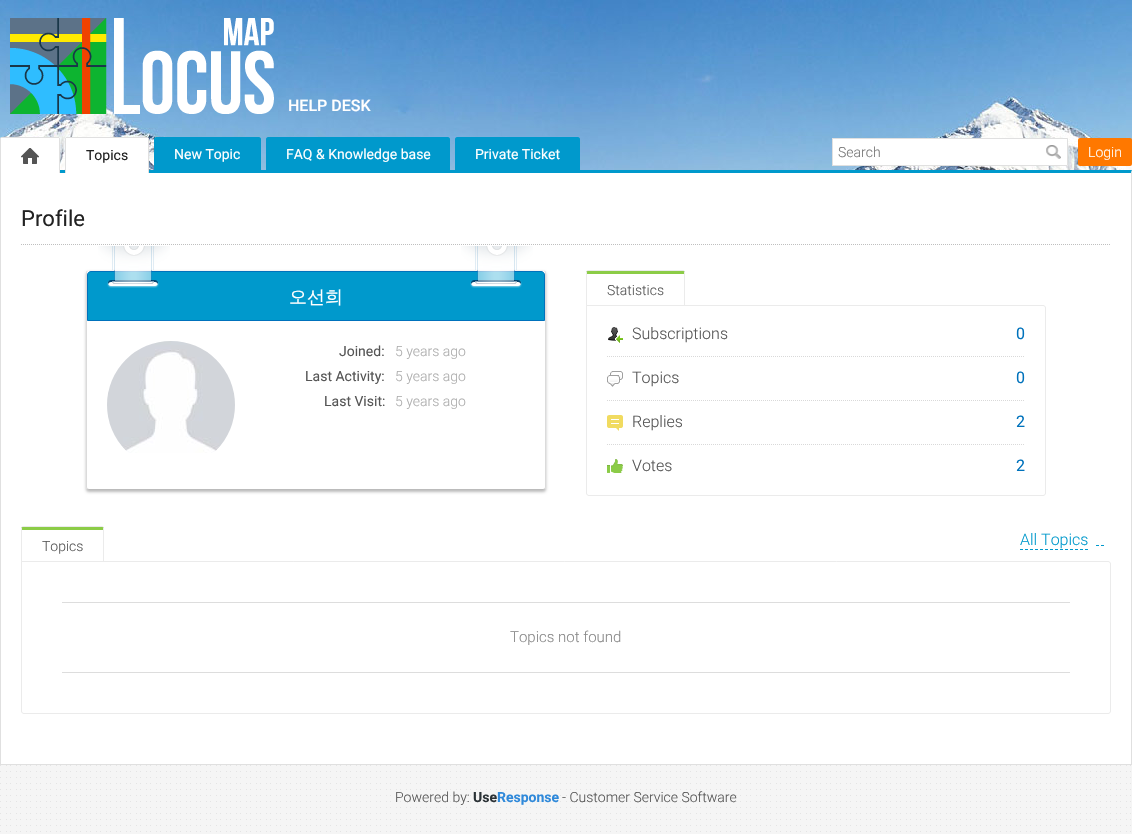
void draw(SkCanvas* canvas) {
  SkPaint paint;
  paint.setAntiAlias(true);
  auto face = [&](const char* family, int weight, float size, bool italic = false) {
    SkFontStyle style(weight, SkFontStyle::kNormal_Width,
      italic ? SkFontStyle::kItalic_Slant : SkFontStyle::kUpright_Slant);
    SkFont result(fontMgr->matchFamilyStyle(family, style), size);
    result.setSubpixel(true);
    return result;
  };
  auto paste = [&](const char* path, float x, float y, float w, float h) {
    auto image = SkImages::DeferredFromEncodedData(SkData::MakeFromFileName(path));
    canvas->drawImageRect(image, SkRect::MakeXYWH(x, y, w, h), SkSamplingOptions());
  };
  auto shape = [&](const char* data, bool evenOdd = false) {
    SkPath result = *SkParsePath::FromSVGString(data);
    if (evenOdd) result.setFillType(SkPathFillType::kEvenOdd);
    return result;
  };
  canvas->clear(0xffffffff);
  paste("img/1.png", 0, 765, 1132, 69);
  paste("img/2.png", 0, 0, 1132, 173);
  paste("img/3.png", 10, 18, 264, 96);
  paint.setColor(0xff0099cc);
  canvas->drawPath(shape("M0 170H1132L1131 173H1Z"), paint);
  paint.setColor(0xffe0e0e0);
  canvas->drawPath(shape("M1132 170V765L1131 764V173Z"), paint);
  canvas->drawRect(SkRect::MakeXYWH(0, 764, 1132, 1), paint);
  canvas->drawPath(shape("M0 765V170L1 173V764Z"), paint);
  paint.setColor(0xffffffff);
  canvas->drawPath(shape("M2 137H58C59 137 60 138 60 139V173H0V139C0 138 1 137 2 137Z"), paint);
  {
    const struct { float x, y, w, h; SkColor color; } items[] = {
      {1, 137, 58, 1, 0xffe0e0e0},
      {59, 138, 1, 35, 0xffe0e0e0},
      {0, 138, 1, 35, 0xffe0e0e0},
    };
    for (auto [x, y, w, h, color] : items) {
      paint.setColor(color);
      canvas->drawRect(SkRect::MakeXYWH(x, y, w, h), paint);
    }
  }
  paste("img/4.png", 21, 148, 18, 16);
  paint.setColor(0xffffffff);
  canvas->drawPath(shape("M67 137H147C148 137 149 138 149 139V173H65V139C65 138 66 137 67 137Z"), paint);
  {
    const struct { float x, y, w, h; SkColor color; } items[] = {
      {66, 137, 82, 1, 0xffe0e0e0},
      {148, 138, 1, 35, 0xffe0e0e0},
      {65, 138, 1, 35, 0xffe0e0e0},
    };
    for (auto [x, y, w, h, color] : items) {
      paint.setColor(color);
      canvas->drawRect(SkRect::MakeXYWH(x, y, w, h), paint);
    }
  }
  paint.setColor(0xff0099cc);
  canvas->drawPath(shape("M156 137H259C260 137 261 138 261 139V173H154V139C154 138 155 137 156 137Z"), paint);
  canvas->drawPath(shape("M268 137H448C449 137 450 138 450 139V173H266V139C266 138 267 137 268 137Z"), paint);
  canvas->drawPath(shape("M457 137H578C579 137 580 138 580 139V173H455V139C455 138 456 137 457 137Z"), paint);
  {
    const struct { float x, y, w, h; SkColor color; } items[] = {
      {833, 139, 207, 26, 0xffffffff},
      {832, 138, 236, 1, 0xffe0e0e0},
      {832, 165, 236, 1, 0xffe0e0e0},
      {832, 138, 1, 28, 0xffe0e0e0},
    };
    for (auto [x, y, w, h, color] : items) {
      paint.setColor(color);
      canvas->drawRect(SkRect::MakeXYWH(x, y, w, h), paint);
    }
  }
  paint.setColor(0xffffffff);
  canvas->drawPath(shape("M1040 138H1066C1067 138 1068 139 1068 140V164C1068 165 1067 166 1066 166H1040Z"), paint);
  {
    const struct { float x, y, w, h; SkColor color; } items[] = {
      {1040, 138, 27, 1, 0xffe0e0e0},
      {1067, 139, 1, 26, 0xffe0e0e0},
      {1040, 165, 27, 1, 0xffe0e0e0},
    };
    for (auto [x, y, w, h, color] : items) {
      paint.setColor(color);
      canvas->drawRect(SkRect::MakeXYWH(x, y, w, h), paint);
    }
  }
  paste("img/5.png", 1046, 145, 15, 14);
  paint.setColor(0xffff7800);
  canvas->drawRoundRect(SkRect::MakeXYWH(1078, 138, 54, 28), 2, 2, paint);
  paint.setStroke(true);
  paint.setStrokeWidth(1);
  paint.setColor(0xffbfbfbf);
  paint.setPathEffect(SkDashPathEffect::Make({{1, 1}}, 0));
  canvas->drawPath(shape("M21 244.5H1111"), paint);
  paint.setPathEffect(nullptr);
  canvas->save();
  canvas->clipPath(shape("M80 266H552V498H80ZM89 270H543C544.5 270 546 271.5 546 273V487C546 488.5 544.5 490 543 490H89C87.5 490 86 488.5 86 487V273C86 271.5 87.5 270 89 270Z", true), true);
  paint.setStroke(false);
  paint.setColor(0xffbbbbbb);
  paint.setMaskFilter(SkMaskFilter::MakeBlur(kNormal_SkBlurStyle, 1.5f));
  canvas->drawRoundRect(SkRect::MakeXYWH(86, 272, 460, 220), 3, 3, paint);
  paint.setMaskFilter(nullptr);
  canvas->restore();
  paint.setStroke(true);
  paint.setColor(0xfff4f4f4);
  canvas->drawPath(shape("M87 271L89 270.5H543L545 271"), paint);
  paint.setColor(0xffdbdbdb);
  canvas->drawPath(shape("M545 271L545.5 273V487L545 489"), paint);
  paint.setColor(0xffbbbbbb);
  canvas->drawPath(shape("M545 489L543 489.5H89L87 489"), paint);
  paint.setColor(0xffdbdbdb);
  canvas->drawPath(shape("M87 489L86.5 487V273L87 271"), paint);
  paint.setStroke(false);
  paint.setColor(0xff0099cc);
  canvas->drawPath(shape("M91 271.5H541C543 271.5 544.5 273 544.5 275V320.5H87.5V275C87.5 273 89 271.5 91 271.5Z"), paint);
  paint.setStroke(true);
  paint.setColor(0xff0072bc);
  canvas->drawPath(shape("M91 271.5H541C543 271.5 544.5 273 544.5 275V320.5H87.5V275C87.5 273 89 271.5 91 271.5Z"), paint);
  paste("img/6.png", 98, 246, 72, 42);
  paste("img/6.png", 461, 246, 72, 42);
  paste("img/7.png", 107, 341, 128, 112);
  paint.setStroke(false);
  paint.setColor(0xff8ccc47);
  canvas->drawRect(SkRect::MakeXYWH(586, 271, 99, 3), paint);
  paint.setStroke(true);
  paint.setColor(0xffebebeb);
  canvas->drawPath(shape("M588 270.5H683C684 270.5 684.5 271 684.5 272V305.5H586.5V272C586.5 271 587 270.5 588 270.5Z"), paint);
  canvas->drawPath(shape("M586.5 305.5H1043C1044.5 305.5 1045.5 306.5 1045.5 308V493C1045.5 494.5 1044.5 495.5 1043 495.5H589C587.5 495.5 586.5 494.5 586.5 493Z"), paint);
  paste("img/8.png", 608, 327, 15, 16);
  paint.setColor(0xffd9d9d9);
  paint.setPathEffect(SkDashPathEffect::Make({{1, 1}}, 0));
  canvas->drawPath(shape("M607 356.5H1025"), paint);
  paint.setPathEffect(nullptr);
  paste("img/9.png", 607, 371, 16, 16);
  paint.setPathEffect(SkDashPathEffect::Make({{1, 1}}, 0));
  canvas->drawPath(shape("M607 400.5H1025"), paint);
  paint.setPathEffect(nullptr);
  paste("img/10.png", 607, 415, 16, 16);
  paint.setPathEffect(SkDashPathEffect::Make({{1, 1}}, 0));
  canvas->drawPath(shape("M607 444.5H1025"), paint);
  paint.setPathEffect(nullptr);
  paste("img/11.png", 607, 459, 16, 14);
  paint.setStroke(false);
  paint.setColor(0xff8ccc47);
  canvas->drawRect(SkRect::MakeXYWH(21, 527, 83, 3), paint);
  paint.setStroke(true);
  paint.setColor(0xffebebeb);
  canvas->drawPath(shape("M23 526.5H102C103 526.5 103.5 527 103.5 528V561.5H21.5V528C21.5 527 22 526.5 23 526.5Z"), paint);
  paint.setColor(0xff0099cc);
  paint.setPathEffect(SkDashPathEffect::Make({{3, 2}}, 0));
  canvas->drawPath(shape("M1020 549.5H1088"), paint);
  paint.setPathEffect(nullptr);
  canvas->drawPath(shape("M1096 545.5H1099M1101 545.5H1104"), paint);
  paint.setColor(0xffebebeb);
  canvas->drawPath(shape("M21.5 561.5H1108C1109.5 561.5 1110.5 562.5 1110.5 564V711C1110.5 712.5 1109.5 713.5 1108 713.5H24C22.5 713.5 21.5 712.5 21.5 711Z"), paint);
  paint.setStroke(false);
  paint.setColor(0xffdddddd);
  canvas->drawRect(SkRect::MakeXYWH(62, 602, 1008, 1), paint);
  canvas->drawRect(SkRect::MakeXYWH(62, 672, 1008, 1), paint);
  auto f0 = face("Roboto", 500, 16);
  paint.setColor(0xffffffff);
  canvas->drawString("HELP DESK", 288, 111, f0, paint);
  auto f1 = face("Roboto", 400, 14);
  paint.setColor(0xff222222);
  canvas->drawString("Topics", 86, 160, f1, paint);
  paint.setColor(0xffffffff);
  {
    const struct { const char* s; float x, y; } items[] = {
      {"New Topic", 174, 159},
      {"FAQ & Knowledge base", 286, 159},
      {"Private Ticket", 475, 159},
    };
    for (auto [s, x, y] : items) {
      canvas->drawString(s, x, y, f1, paint);
    }
  }
  auto f2 = face("Roboto", 300, 14);
  paint.setColor(0xff757575);
  canvas->drawString("Search", 838, 157, f2, paint);
  paint.setColor(0xffffffff);
  canvas->drawString("Login", 1088, 157, f2, paint);
  auto f3 = face("Roboto", 400, 22);
  paint.setColor(0xff222222);
  canvas->drawString("Profile", 21, 226, f3, paint);
  auto f4 = face("WenQuanYi Zen Hei", 500, 18);
  paint.setColor(0xffffffff);
  canvas->drawString("오선희", 289, 303, f4, paint);
  paint.setColor(0xff555555);
  canvas->drawString("Joined:", 339, 356, f1, paint);
  paint.setColor(0xffacacac);
  canvas->drawString("5 years ago", 395, 356, f2, paint);
  paint.setColor(0xff555555);
  canvas->drawString("Last Activity:", 305, 381, f1, paint);
  paint.setColor(0xffacacac);
  canvas->drawString("5 years ago", 395, 381, f2, paint);
  paint.setColor(0xff555555);
  canvas->drawString("Last Visit:", 324, 406, f1, paint);
  paint.setColor(0xffacacac);
  canvas->drawString("5 years ago", 395, 406, f2, paint);
  paint.setColor(0xff555555);
  canvas->drawString("Statistics", 607, 295, f2, paint);
  auto f5 = face("Roboto", 300, 16);
  canvas->drawString("Subscriptions", 632, 339, f5, paint);
  auto f6 = face("Roboto", 400, 16);
  paint.setColor(0xff0072bc);
  canvas->drawString("0", 1016, 339, f6, paint);
  paint.setColor(0xff555555);
  canvas->drawString("Topics", 632, 383, f5, paint);
  paint.setColor(0xff0072bc);
  canvas->drawString("0", 1016, 383, f6, paint);
  paint.setColor(0xff555555);
  canvas->drawString("Replies", 632, 427, f5, paint);
  paint.setColor(0xff0072bc);
  canvas->drawString("2", 1016, 427, f6, paint);
  paint.setColor(0xff555555);
  canvas->drawString("Votes", 632, 471, f5, paint);
  paint.setColor(0xff0072bc);
  canvas->drawString("2", 1016, 471, f6, paint);
  paint.setColor(0xff555555);
  canvas->drawString("Topics", 42, 551, f2, paint);
  paint.setColor(0xff0099cc);
  canvas->drawString("All Topics", 1020, 545, f5, paint);
  auto f7 = face("Roboto", 300, 15);
  paint.setColor(0xff898989);
  canvas->drawString("Topics not found", 510, 642, f7, paint);
  paint.setColor(0xff555555);
  canvas->drawString("Powered by:", 395, 802, f2, paint);
  auto f8 = face("Roboto", 700, 14);
  paint.setColor(0xff2b3236);
  canvas->drawString("Use", 473, 802, f8, paint);
  paint.setColor(0xff2f89da);
  canvas->drawString("Response", 497, 802, f8, paint);
  paint.setColor(0xff555555);
  canvas->drawString("- Customer Service Software", 562, 802, f2, paint);
}
